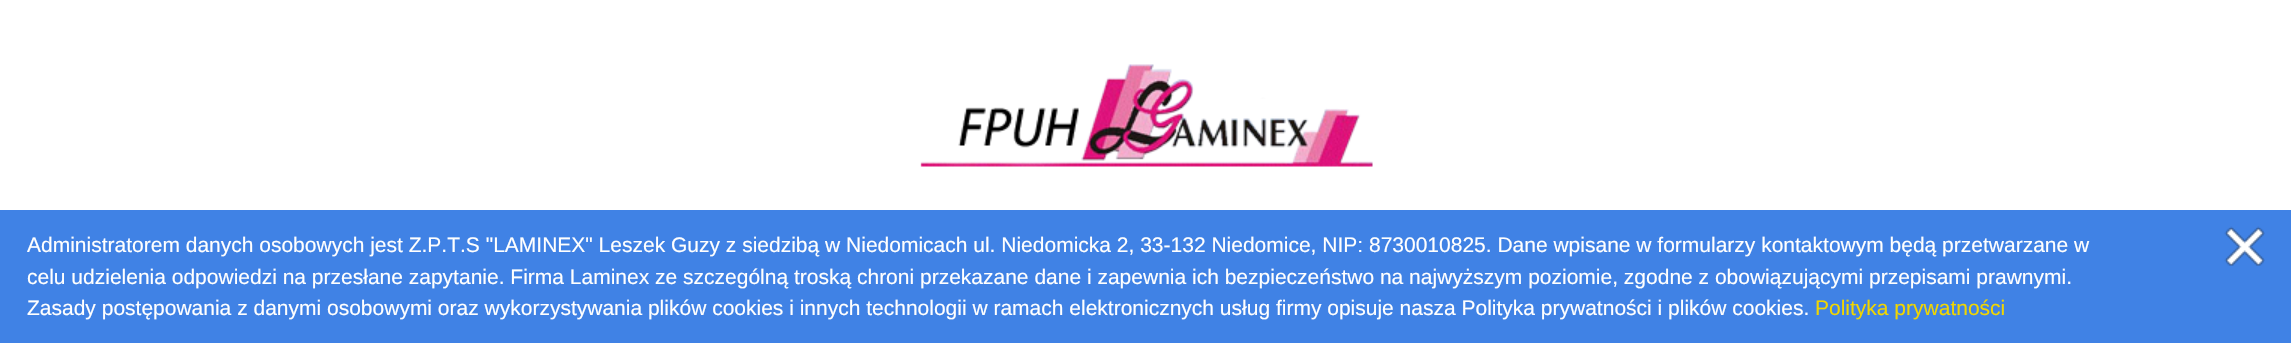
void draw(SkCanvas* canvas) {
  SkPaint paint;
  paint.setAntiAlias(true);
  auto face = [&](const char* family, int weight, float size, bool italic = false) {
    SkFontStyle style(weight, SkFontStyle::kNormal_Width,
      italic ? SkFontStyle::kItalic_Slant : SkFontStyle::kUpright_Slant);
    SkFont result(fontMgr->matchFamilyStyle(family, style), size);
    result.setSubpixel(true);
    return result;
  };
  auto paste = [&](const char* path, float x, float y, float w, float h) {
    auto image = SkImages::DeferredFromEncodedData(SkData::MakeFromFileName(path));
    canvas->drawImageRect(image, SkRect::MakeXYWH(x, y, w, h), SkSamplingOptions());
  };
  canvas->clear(0xffffffff);
  paste("img/1.png", 920, 64, 453, 103);
  paint.setColor(0xff4082e5);
  canvas->drawRect(SkRect::MakeXYWH(0, 210, 2291, 133), paint);
  paste("img/2.png", 2224, 226, 41, 40);
  auto f0 = face("Liberation Sans", 400, 21);
  paint.setColor(0xffffffff);
  {
    const struct { const char* s; float x, y; } items[] = {
      {"Administratorem danych osobowych jest Z.P.T.S \"LAMINEX\" Leszek Guzy z siedzibą w Niedomicach ul. Niedomicka 2, 33-132 Niedomice, NIP: 8730010825. Dane wpisane w formularzy kontaktowym będą przetwarzane w", 27, 252},
      {"celu udzielenia odpowiedzi na przesłane zapytanie. Firma Laminex ze szczególną troską chroni przekazane dane i zapewnia ich bezpieczeństwo na najwyższym poziomie, zgodne z obowiązującymi przepisami prawnymi.", 27, 284},
      {"Zasady postępowania z danymi osobowymi oraz wykorzystywania plików cookies i innych technologii w ramach elektronicznych usług firmy opisuje nasza Polityka prywatności i plików cookies.", 27, 315},
    };
    for (auto [s, x, y] : items) {
      canvas->drawString(s, x, y, f0, paint);
    }
  }
  paint.setColor(0xfff1d600);
  canvas->drawString("Polityka prywatności", 1815, 315, f0, paint);
}
